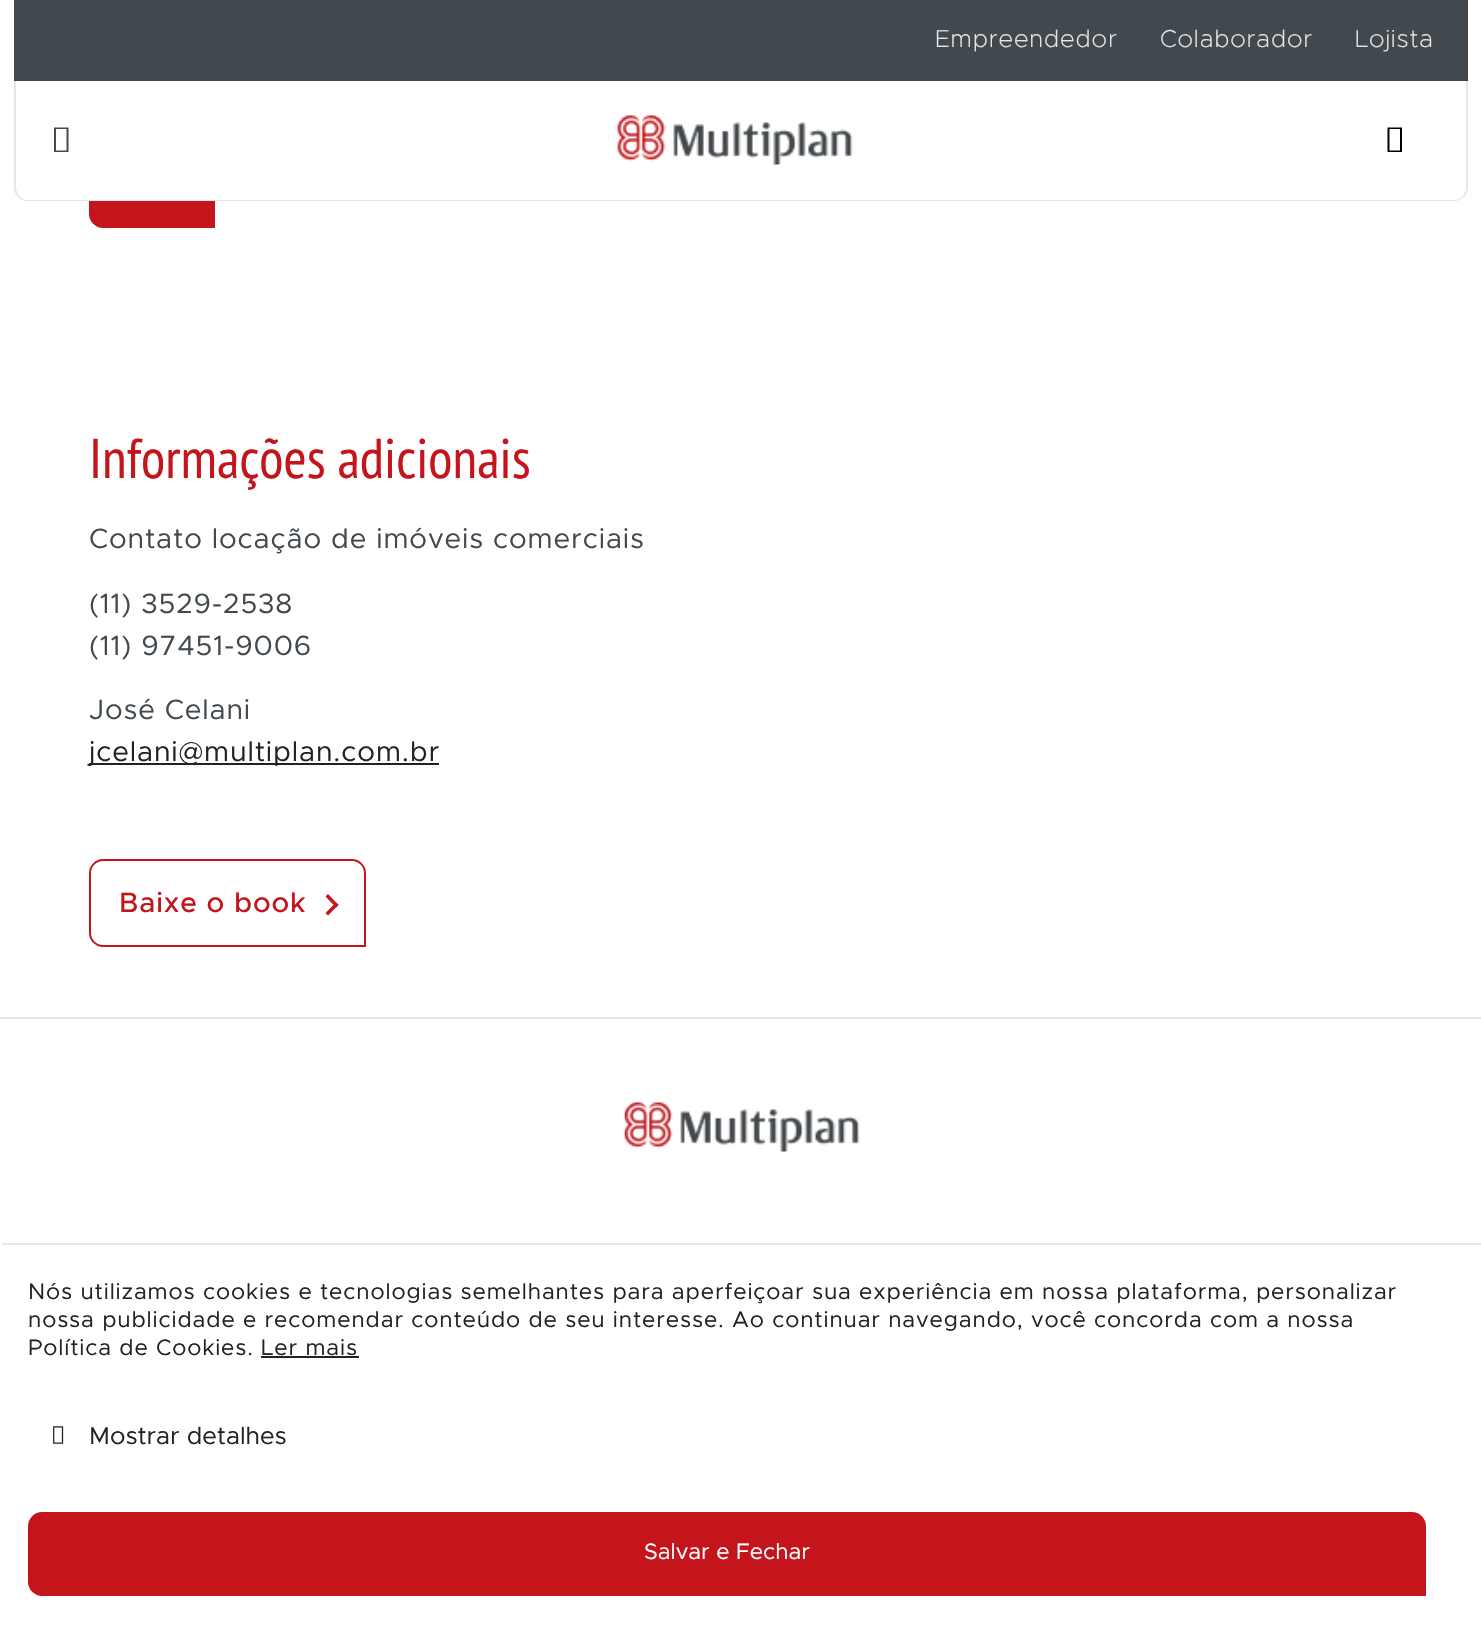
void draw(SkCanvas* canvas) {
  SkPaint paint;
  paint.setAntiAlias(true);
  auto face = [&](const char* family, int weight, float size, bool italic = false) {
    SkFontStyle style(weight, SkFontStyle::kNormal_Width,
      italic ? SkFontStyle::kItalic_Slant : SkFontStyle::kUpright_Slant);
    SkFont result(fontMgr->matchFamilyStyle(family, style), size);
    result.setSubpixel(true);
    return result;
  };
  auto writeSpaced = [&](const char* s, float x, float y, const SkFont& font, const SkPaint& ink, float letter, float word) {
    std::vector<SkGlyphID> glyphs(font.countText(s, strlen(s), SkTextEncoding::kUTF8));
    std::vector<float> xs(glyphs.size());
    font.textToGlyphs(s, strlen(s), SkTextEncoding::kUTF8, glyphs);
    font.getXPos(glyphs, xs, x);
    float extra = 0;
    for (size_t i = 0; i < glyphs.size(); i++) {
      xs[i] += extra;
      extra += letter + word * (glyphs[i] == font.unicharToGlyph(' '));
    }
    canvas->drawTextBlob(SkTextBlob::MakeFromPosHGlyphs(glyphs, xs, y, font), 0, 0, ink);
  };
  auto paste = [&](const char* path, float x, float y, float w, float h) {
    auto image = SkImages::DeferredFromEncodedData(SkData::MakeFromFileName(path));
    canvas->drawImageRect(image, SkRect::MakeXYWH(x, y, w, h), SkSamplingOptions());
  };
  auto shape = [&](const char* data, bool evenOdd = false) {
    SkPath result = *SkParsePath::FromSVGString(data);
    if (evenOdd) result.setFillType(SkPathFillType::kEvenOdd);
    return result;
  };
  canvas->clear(0xffffffff);
  paint.setColor(0xff42494e);
  canvas->drawRect(SkRect::MakeXYWH(14, 0, 1454, 81), paint);
  paint.setColor(0xffc4151c);
  canvas->drawPath(shape("M103 166H201C208 166 214 172 214 179V227H103C96 227 90 221 90 214V179C90 172 96 166 103 166Z"), paint);
  paint.setStroke(true);
  paint.setStrokeWidth(2);
  canvas->drawPath(shape("M103 166H201C208 166 214 172 214 179V227H103C96 227 90 221 90 214V179C90 172 96 166 103 166Z"), paint);
  paint.setStroke(false);
  paint.setColor(0xffffffff);
  canvas->drawPath(shape("M14 81H1468V187C1468 194.5 1461.5 201 1454 201H28C20.5 201 14 194.5 14 187Z"), paint);
  paint.setColor(0x1a000000);
  canvas->drawPath(shape("M14 80H1468V187C1468 195 1462 201 1454 201H28C20 201 14 195 14 187ZM16 80H1466V187C1466 194 1461 200 1454 200H28C21 200 16 194 16 187Z", true), paint);
  paint.setColor(0xff4a4a4a);
  canvas->drawPath(shape("M54 152V127.5H68.5V152ZM56 150.5H66.5V129H56Z"), paint);
  paste("img/1.png", 617, 115, 236, 50);
  paint.setColor(0xff000000);
  canvas->drawPath(shape("M1387.5 152V127.5H1402V152ZM1389.5 150.5H1400V129H1389.5Z"), paint);
  paint.setColor(0xff222222);
  canvas->drawRect(SkRect::MakeXYWH(89, 763, 350, 2), paint);
  paint.setStroke(true);
  paint.setColor(0xffc4151c);
  canvas->drawPath(shape("M103 860H352C359 860 365 866 365 873V946H103C96 946 90 940 90 933V873C90 866 96 860 103 860Z"), paint);
  paint.setStroke(false);
  canvas->drawPath(shape("M328 894L338.5 905L336 907.5L325.5 896.5Z"), paint);
  canvas->drawPath(shape("M336 902.5L338.5 905L328 915.5L325.5 913Z"), paint);
  paint.setColor(0xffe6e6e6);
  canvas->drawRect(SkRect::MakeXYWH(0, 1017, 1481, 2), paint);
  paste("img/2.png", 624, 1102, 236, 50);
  canvas->drawRect(SkRect::MakeXYWH(2, 1243, 1479, 2), paint);
  paint.setColor(0xff222222);
  canvas->drawRect(SkRect::MakeXYWH(261, 1356, 98, 2), paint);
  paste("img/3.png", 53, 1426, 11, 18);
  paint.setColor(0xffc4151c);
  canvas->drawPath(shape("M42 1513H1412C1419 1513 1425 1519 1425 1526V1595H42C35 1595 29 1589 29 1582V1526C29 1519 35 1513 42 1513Z"), paint);
  paint.setStroke(true);
  canvas->drawPath(shape("M42 1513H1412C1419 1513 1425 1519 1425 1526V1595H42C35 1595 29 1589 29 1582V1526C29 1519 35 1513 42 1513Z"), paint);
  auto f0 = face("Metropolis", 200, 24.5f);
  paint.setStroke(false);
  paint.setColor(0xffe7e7e7);
  {
    const struct { const char* s; float x, y; } items[] = {
      {"Empreendedor", 935, 47},
      {"Colaborador", 1160, 47},
      {"Lojista", 1355, 47},
    };
    for (auto [s, x, y] : items) {
      writeSpaced(s, x, y, f0, paint, 0.87f, 0);
    }
  }
  auto f1 = face("PT Sans Narrow", 400, 56);
  paint.setColor(0xffc4151c);
  canvas->drawString("Informações adicionais", 89, 478, f1, paint);
  auto f2 = face("Metropolis", 400, 28);
  paint.setColor(0xff42494e);
  {
    const struct { const char* s; float x, y; } items[] = {
      {"Contato locação de imóveis comerciais", 89, 548},
      {"(11) 3529-2538", 89, 613},
      {"(11) 97451-9006", 89, 655},
      {"José Celani", 89, 719},
    };
    for (auto [s, x, y] : items) {
      writeSpaced(s, x, y, f2, paint, 0.87f, 0);
    }
  }
  paint.setColor(0xff222222);
  writeSpaced("jcelani@multiplan.com.br", 89, 761, f2, paint, 0.87f, 0);
  auto f3 = face("Metropolis", 500, 28);
  paint.setColor(0xffc4151c);
  writeSpaced("Baixe o book", 119, 912, f3, paint, 0.87f, 0);
  auto f4 = face("Metropolis", 400, 22.4f);
  paint.setColor(0xff222222);
  {
    const struct { const char* s; float x, y; } items[] = {
      {"Nós utilizamos cookies e tecnologias semelhantes para aperfeiçoar sua experiência em nossa plataforma, personalizar", 28, 1299},
      {"nossa publicidade e recomendar conteúdo de seu interesse. Ao continuar navegando, você concorda com a nossa", 28, 1327},
      {"Política de Cookies.", 28, 1355},
      {"Ler mais", 261, 1355},
    };
    for (auto [s, x, y] : items) {
      writeSpaced(s, x, y, f4, paint, 0.87f, 0);
    }
  }
  auto f5 = face("Metropolis", 400, 24.5f);
  canvas->drawString("Mostrar detalhes", 89, 1444, f5, paint);
  paint.setColor(0xffffffff);
  canvas->drawString("Salvar e Fechar", 644, 1559, f4, paint);
}
